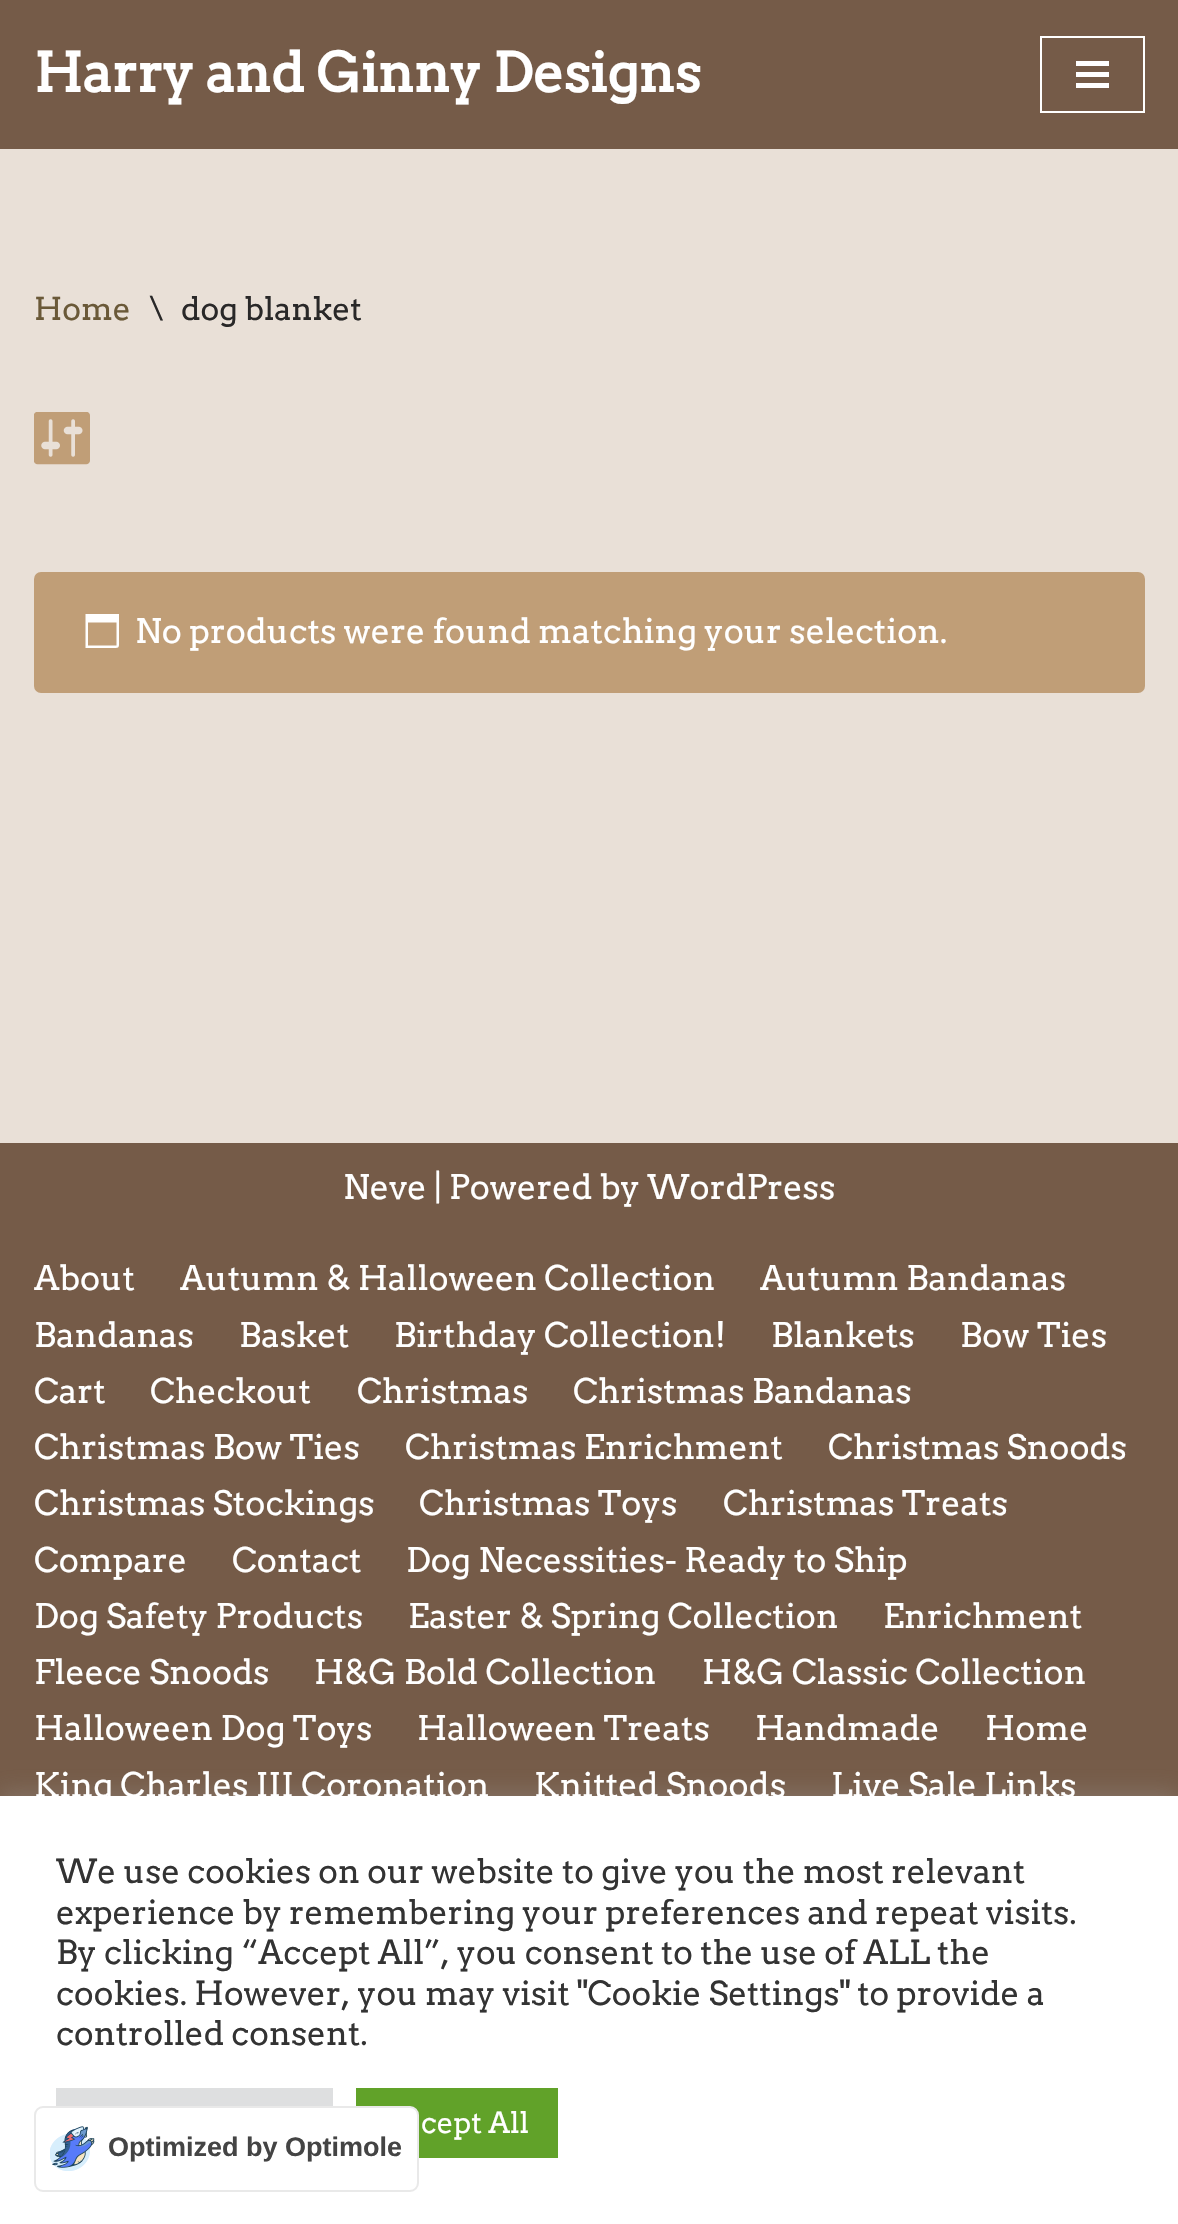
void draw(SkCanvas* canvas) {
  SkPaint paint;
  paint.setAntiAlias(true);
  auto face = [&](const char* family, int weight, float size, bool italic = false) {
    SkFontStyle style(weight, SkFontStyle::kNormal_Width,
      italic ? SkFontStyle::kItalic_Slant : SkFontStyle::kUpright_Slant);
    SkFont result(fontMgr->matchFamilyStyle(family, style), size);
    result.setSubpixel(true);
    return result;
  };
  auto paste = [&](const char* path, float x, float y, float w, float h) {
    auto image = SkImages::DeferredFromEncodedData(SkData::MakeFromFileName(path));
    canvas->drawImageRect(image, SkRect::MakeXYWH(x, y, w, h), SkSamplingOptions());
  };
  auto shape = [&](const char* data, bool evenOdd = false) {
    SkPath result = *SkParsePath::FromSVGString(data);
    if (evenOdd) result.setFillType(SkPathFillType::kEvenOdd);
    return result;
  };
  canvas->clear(0xffe9e0d7);
  paint.setColor(0xff755b48);
  canvas->drawRect(SkRect::MakeXYWH(0, 0, 1178, 149), paint);
  paint.setStroke(true);
  paint.setStrokeWidth(2);
  paint.setColor(0xffffffff);
  canvas->drawRect(SkRect::MakeXYWH(1041, 37, 103, 75), paint);
  paint.setStroke(false);
  {
    const struct { float x, y, w, h; SkColor color; } items[] = {
      {1076, 61, 33, 5, 0xffffffff},
      {1076, 72, 33, 5, 0xffffffff},
      {1076, 83, 33, 5, 0xffffffff},
    };
    for (auto [x, y, w, h, color] : items) {
      paint.setColor(color);
      canvas->drawRect(SkRect::MakeXYWH(x, y, w, h), paint);
    }
  }
  paste("img/1.png", 34, 412, 56, 53);
  paint.setColor(0xffc09e77);
  canvas->drawRoundRect(SkRect::MakeXYWH(34, 572, 1111, 121), 7, 7, paint);
  paint.setColor(0xffffffff);
  canvas->drawPath(shape("M116.5 622.5H88V645.5H116.5ZM119 614V640C119 648.5 120 648 111.5 648H85.5V614Z"), paint);
  paint.setColor(0xff755b48);
  canvas->drawRect(SkRect::MakeXYWH(0, 1143, 1178, 653), paint);
  paint.setColor(0x4dacabab);
  paint.setMaskFilter(SkMaskFilter::MakeBlur(kNormal_SkBlurStyle, 11));
  canvas->drawRect(SkRect::MakeXYWH(0, 1793, 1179, 430), paint);
  paint.setMaskFilter(nullptr);
  {
    const struct { float x, y, w, h; SkColor color; } items[] = {
      {0, 1796, 1178, 428, 0xffffffff},
      {56, 2088, 277, 18, 0xffdedfe0},
      {356, 2088, 202, 70, 0xff61a229},
    };
    for (auto [x, y, w, h, color] : items) {
      paint.setColor(color);
      canvas->drawRect(SkRect::MakeXYWH(x, y, w, h), paint);
    }
  }
  paint.setColor(0xffffffff);
  canvas->drawRoundRect(SkRect::MakeXYWH(35, 2107, 383, 84), 8, 8, paint);
  paint.setStroke(true);
  paint.setColor(0xffe9e9e9);
  canvas->drawRoundRect(SkRect::MakeXYWH(35, 2107, 383, 84), 8, 8, paint);
  paste("img/2.png", 50, 2126, 45, 45);
  auto f0 = face("Arvo", 700, 54);
  paint.setStroke(false);
  paint.setColor(0xffffffff);
  canvas->drawString("Harry and Ginny Designs", 34, 92, f0, paint);
  auto f1 = face("Arvo", 400, 31.5f);
  paint.setColor(0xff6a5938);
  canvas->drawString("Home", 34, 320, f1, paint);
  paint.setColor(0xff292828);
  canvas->drawString("\\", 149, 320, f1, paint);
  canvas->drawString("dog blanket", 181, 320, f1, paint);
  auto f2 = face("Arvo", 400, 33.75f);
  paint.setColor(0xffffffff);
  {
    const struct { const char* s; float x, y; } items[] = {
      {"No products were found matching your selection.", 135, 643},
      {"Neve | Powered by WordPress", 343, 1199},
      {"About", 34, 1290},
      {"Autumn & Halloween Collection", 180, 1290},
      {"Autumn Bandanas", 760, 1290},
      {"Bandanas", 34, 1347},
      {"Basket", 239, 1347},
      {"Birthday Collection!", 394, 1347},
      {"Blankets", 771, 1347},
      {"Bow Ties", 960, 1347},
      {"Cart", 34, 1403},
      {"Checkout", 150, 1403},
      {"Christmas", 357, 1403},
      {"Christmas Bandanas", 573, 1403},
      {"Christmas Bow Ties", 34, 1459},
      {"Christmas Enrichment", 405, 1459},
      {"Christmas Snoods", 828, 1459},
      {"Christmas Stockings", 34, 1515},
      {"Christmas Toys", 419, 1515},
      {"Christmas Treats", 723, 1515},
      {"Compare", 34, 1572},
      {"Contact", 232, 1572},
      {"Dog Necessities- Ready to Ship", 406, 1572},
      {"Dog Safety Products", 34, 1628},
      {"Easter & Spring Collection", 408, 1628},
      {"Enrichment", 883, 1628},
      {"Fleece Snoods", 34, 1684},
      {"H&G Bold Collection", 314, 1684},
      {"H&G Classic Collection", 702, 1684},
      {"Halloween Dog Toys", 34, 1740},
      {"Halloween Treats", 417, 1740},
      {"Handmade", 755, 1740},
      {"Home", 985, 1740},
      {"King Charles III Coronation", 34, 1797},
      {"Knitted Snoods", 534, 1797},
      {"Live Sale Links", 831, 1797},
    };
    for (auto [s, x, y] : items) {
      canvas->drawString(s, x, y, f2, paint);
    }
  }
  auto f3 = face("Arvo", 400, 33);
  paint.setColor(0xff333333);
  {
    const struct { const char* s; float x, y; } items[] = {
      {"We use cookies on our website to give you the most relevant", 56, 1883},
      {"experience by remembering your preferences and repeat visits.", 56, 1924},
      {"By clicking “Accept All”, you consent to the use of ALL the", 56, 1964},
      {"cookies. However, you may visit \"Cookie Settings\" to provide a", 56, 2005},
      {"controlled consent.", 56, 2045},
    };
    for (auto [s, x, y] : items) {
      canvas->drawString(s, x, y, f3, paint);
    }
  }
  auto f4 = face("Arvo", 400, 29);
  paint.setColor(0xffffffff);
  canvas->drawString("cept All", 421, 2133, f4, paint);
  auto f5 = face("Liberation Sans", 700, 27);
  paint.setColor(0xff444444);
  canvas->drawString("Optimized by Optimole", 108, 2156, f5, paint);
}
